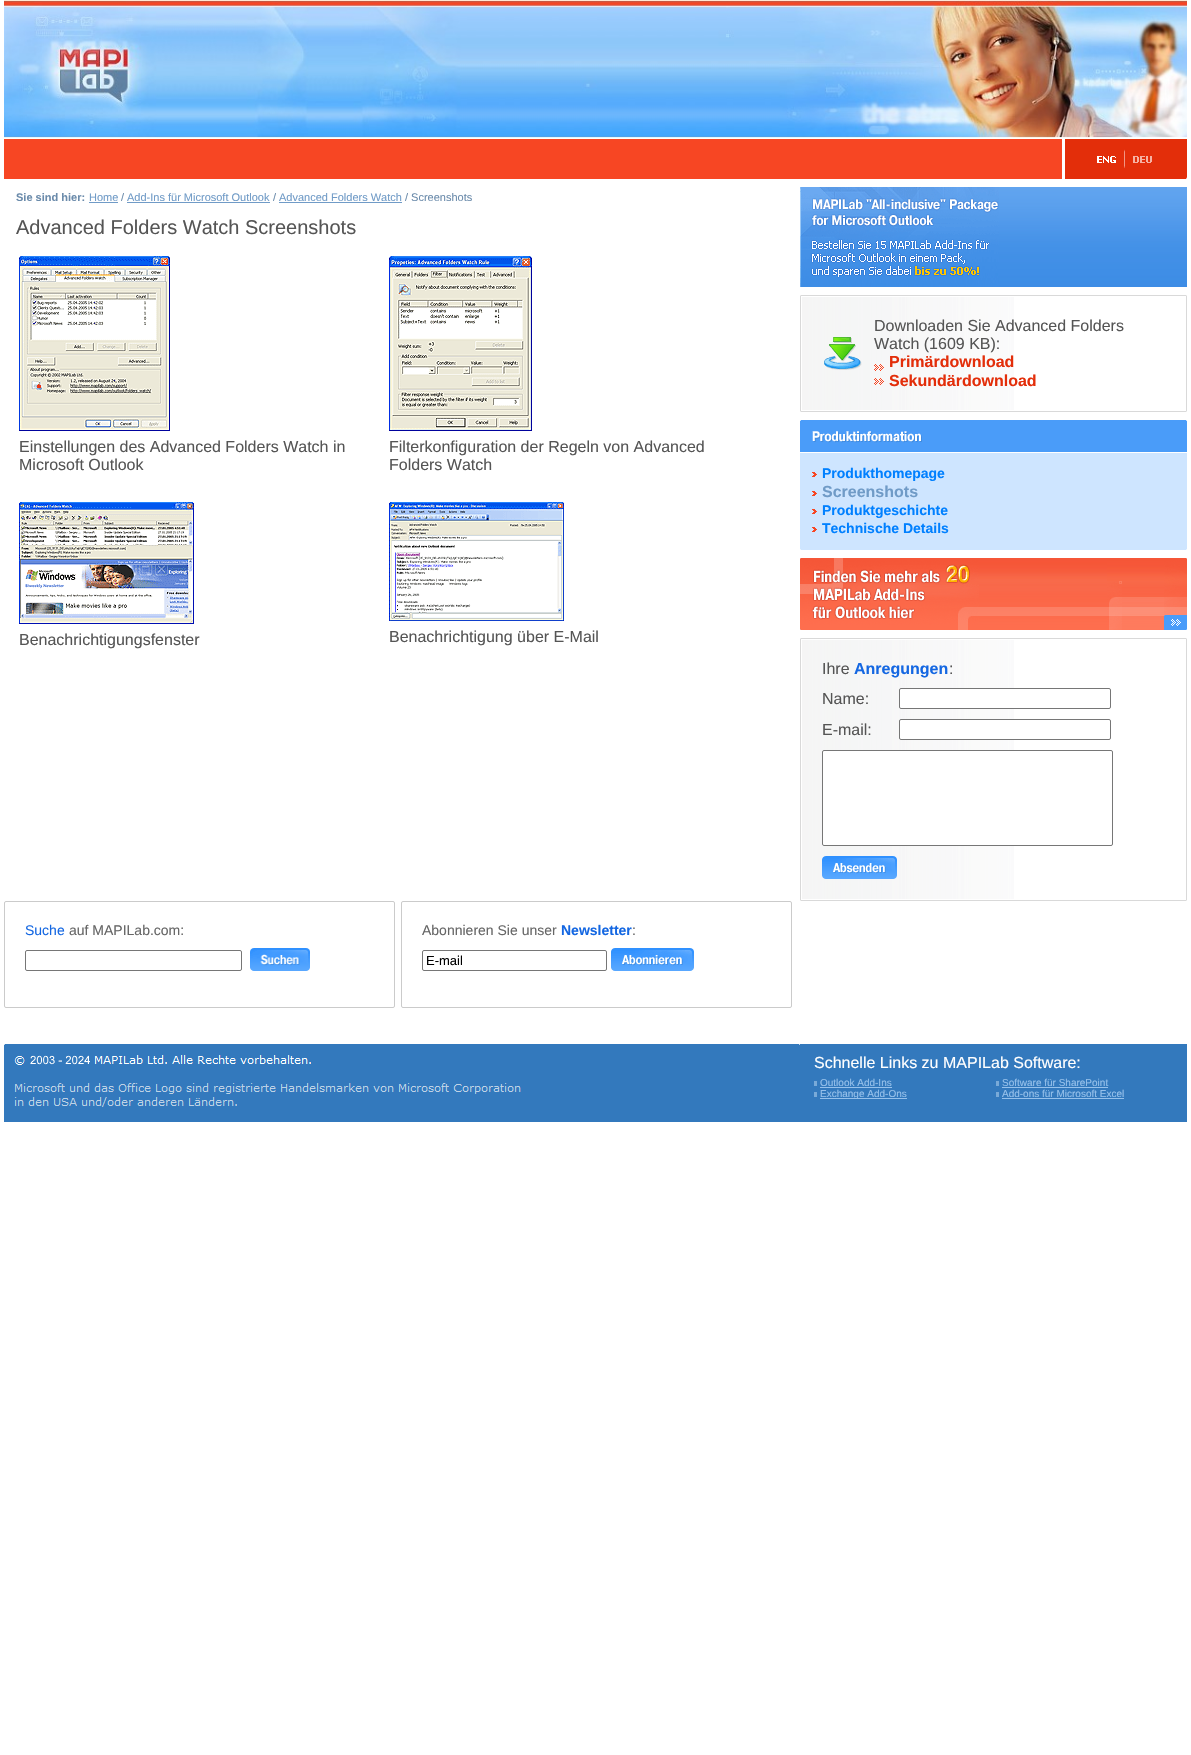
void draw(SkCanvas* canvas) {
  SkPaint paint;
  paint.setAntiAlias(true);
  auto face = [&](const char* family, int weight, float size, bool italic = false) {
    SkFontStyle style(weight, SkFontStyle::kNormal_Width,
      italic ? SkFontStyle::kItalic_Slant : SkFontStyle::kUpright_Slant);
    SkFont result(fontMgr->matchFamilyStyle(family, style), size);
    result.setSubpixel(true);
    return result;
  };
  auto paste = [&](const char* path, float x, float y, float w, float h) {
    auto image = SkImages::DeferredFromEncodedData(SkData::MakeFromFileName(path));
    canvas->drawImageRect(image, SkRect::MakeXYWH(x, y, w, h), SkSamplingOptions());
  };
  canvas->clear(0xffffffff);
  paste("img/1.png", 4, 0, 1183, 138);
  paint.setColor(0xfff74623);
  canvas->drawRect(SkRect::MakeXYWH(4, 139, 1058, 40), paint);
  paint.setColor(0xffe32e0a);
  canvas->drawRect(SkRect::MakeXYWH(1065, 139, 120, 40), paint);
  paste("img/2.png", 1097, 156, 19, 7);
  paste("img/3.png", 1124, 149, 1, 20);
  paste("img/4.png", 1133, 156, 19, 7);
  paste("img/5.png", 1185, 139, 2, 40);
  {
    const struct { float x, y, w, h; SkColor color; } items[] = {
      {89, 202, 29, 1, 0xff709bc7},
      {127, 202, 143, 1, 0xff709bc7},
      {279, 202, 123, 1, 0xff709bc7},
    };
    for (auto [x, y, w, h, color] : items) {
      paint.setColor(color);
      canvas->drawRect(SkRect::MakeXYWH(x, y, w, h), paint);
    }
  }
  paste("img/6.png", 19, 256, 151, 175);
  paste("img/7.png", 389, 256, 143, 175);
  paste("img/8.png", 19, 502, 175, 122);
  paste("img/9.png", 389, 502, 175, 119);
  paste("img/10.png", 999, 187, 188, 100);
  paste("img/11.png", 800, 187, 199, 100);
  paste("img/12.png", 800, 295, 2, 2);
  paint.setColor(0xffd9d9d9);
  canvas->drawRect(SkRect::MakeXYWH(802, 295, 383, 1), paint);
  paste("img/13.png", 1185, 295, 2, 2);
  canvas->drawRect(SkRect::MakeXYWH(800, 297, 1, 113), paint);
  paste("img/14.png", 802, 297, 212, 113);
  paste("img/15.png", 824, 337, 38, 33);
  paste("img/16.png", 874, 364, 10, 7);
  paste("img/16.png", 874, 378, 10, 7);
  canvas->drawRect(SkRect::MakeXYWH(1186, 297, 1, 113), paint);
  paste("img/17.png", 800, 410, 2, 2);
  canvas->drawRect(SkRect::MakeXYWH(802, 411, 383, 1), paint);
  paste("img/18.png", 1185, 410, 2, 2);
  paste("img/19.png", 800, 420, 2, 32);
  paint.setColor(0xff4a9cf9);
  canvas->drawRect(SkRect::MakeXYWH(802, 420, 383, 32), paint);
  paste("img/20.png", 812, 431, 110, 12);
  paste("img/21.png", 1185, 420, 2, 32);
  paint.setColor(0xffcee5ff);
  canvas->drawRect(SkRect::MakeXYWH(800, 453, 387, 97), paint);
  paste("img/22.png", 812, 472, 5, 5);
  paste("img/22.png", 812, 491, 5, 5);
  paste("img/22.png", 812, 509, 5, 5);
  paste("img/22.png", 812, 527, 5, 5);
  paint.setColor(0xffebf5ff);
  canvas->drawRect(SkRect::MakeXYWH(800, 549, 1, 1), paint);
  canvas->drawRect(SkRect::MakeXYWH(1186, 549, 1, 1), paint);
  paste("img/23.png", 979, 558, 128, 72);
  paste("img/24.png", 800, 558, 179, 72);
  paste("img/25.png", 1107, 558, 34, 72);
  paste("img/26.png", 1107, 581, 15, 49);
  paste("img/27.png", 1141, 558, 23, 72);
  paste("img/28.png", 1164, 558, 23, 72);
  paste("img/12.png", 800, 638, 2, 2);
  paint.setColor(0xffd9d9d9);
  canvas->drawRect(SkRect::MakeXYWH(802, 638, 383, 1), paint);
  paste("img/13.png", 1185, 638, 2, 2);
  canvas->drawRect(SkRect::MakeXYWH(800, 640, 1, 259), paint);
  paste("img/29.png", 802, 640, 212, 259);
  paint.setColor(0xffffffff);
  canvas->drawRoundRect(SkRect::MakeXYWH(899.5f, 688.5f, 211, 20), 1.5f, 1.5f, paint);
  paint.setStroke(true);
  paint.setStrokeWidth(1);
  paint.setColor(0xff767676);
  canvas->drawRoundRect(SkRect::MakeXYWH(899.5f, 688.5f, 211, 20), 1.5f, 1.5f, paint);
  paint.setStroke(false);
  paint.setColor(0xffffffff);
  canvas->drawRoundRect(SkRect::MakeXYWH(899.5f, 719.5f, 211, 20), 1.5f, 1.5f, paint);
  paint.setStroke(true);
  paint.setColor(0xff767676);
  canvas->drawRoundRect(SkRect::MakeXYWH(899.5f, 719.5f, 211, 20), 1.5f, 1.5f, paint);
  paint.setStroke(false);
  paint.setColor(0xffffffff);
  canvas->drawRoundRect(SkRect::MakeXYWH(822.5f, 750.5f, 290, 95), 1.5f, 1.5f, paint);
  paint.setStroke(true);
  paint.setColor(0xff767676);
  canvas->drawRoundRect(SkRect::MakeXYWH(822.5f, 750.5f, 290, 95), 1.5f, 1.5f, paint);
  paste("img/30.png", 822, 856, 75, 23);
  paint.setStroke(false);
  paint.setColor(0xffd9d9d9);
  canvas->drawRect(SkRect::MakeXYWH(1186, 640, 1, 259), paint);
  paste("img/17.png", 800, 899, 2, 2);
  canvas->drawRect(SkRect::MakeXYWH(802, 900, 383, 1), paint);
  paste("img/18.png", 1185, 899, 2, 2);
  paint.setStroke(true);
  paint.setColor(0xffcbcbcb);
  canvas->drawRoundRect(SkRect::MakeXYWH(4.5f, 901.5f, 390, 106), 1.5f, 1.5f, paint);
  paint.setColor(0xff767676);
  canvas->drawRoundRect(SkRect::MakeXYWH(25.5f, 950.5f, 216, 20), 1.5f, 1.5f, paint);
  paste("img/31.png", 250, 948, 60, 23);
  paint.setColor(0xffcbcbcb);
  canvas->drawRoundRect(SkRect::MakeXYWH(401.5f, 901.5f, 390, 106), 1.5f, 1.5f, paint);
  paint.setColor(0xff767676);
  canvas->drawRoundRect(SkRect::MakeXYWH(422.5f, 950.5f, 184, 20), 1.5f, 1.5f, paint);
  paste("img/32.png", 611, 948, 83, 23);
  paint.setStroke(false);
  {
    const struct { float x, y, w, h; SkColor color; } items[] = {
      {4, 1044, 1183, 78, 0xff3379bd},
      {4, 1044, 1, 1, 0xffc1d7eb},
      {799, 1044, 1, 1, 0xffc1d7eb},
    };
    for (auto [x, y, w, h, color] : items) {
      paint.setColor(color);
      canvas->drawRect(SkRect::MakeXYWH(x, y, w, h), paint);
    }
  }
  paste("img/33.png", 14, 1055, 507, 52);
  {
    const struct { float x, y, w, h; SkColor color; } items[] = {
      {814, 1081, 3, 5, 0xff79aad8},
      {820, 1087, 72, 1, 0xff96c1eb},
      {814, 1092, 3, 5, 0xff79aad8},
      {820, 1098, 87, 1, 0xff96c1eb},
      {996, 1081, 3, 5, 0xff79aad8},
      {1002, 1087, 106, 1, 0xff96c1eb},
      {996, 1092, 3, 5, 0xff79aad8},
      {1002, 1098, 122, 1, 0xff96c1eb},
    };
    for (auto [x, y, w, h, color] : items) {
      paint.setColor(color);
      canvas->drawRect(SkRect::MakeXYWH(x, y, w, h), paint);
    }
  }
  auto f0 = face("Liberation Sans", 700, 11);
  paint.setColor(0xff6b8bab);
  canvas->drawString("Sie sind hier:", 16, 201, f0, paint);
  auto f1 = face("Liberation Sans", 400, 11);
  paint.setColor(0xff709bc7);
  canvas->drawString("Home", 89, 201, f1, paint);
  paint.setColor(0xff6b8bab);
  canvas->drawString("/", 121, 201, f1, paint);
  paint.setColor(0xff709bc7);
  canvas->drawString("Add-Ins für Microsoft Outlook", 127, 201, f1, paint);
  paint.setColor(0xff6b8bab);
  canvas->drawString("/", 273, 201, f1, paint);
  paint.setColor(0xff709bc7);
  canvas->drawString("Advanced Folders Watch", 279, 201, f1, paint);
  paint.setColor(0xff6b8bab);
  canvas->drawString("/ Screenshots", 405, 201, f1, paint);
  auto f2 = face("Liberation Sans", 400, 20);
  paint.setColor(0xff555555);
  canvas->drawString("Advanced Folders Watch Screenshots", 16, 234, f2, paint);
  auto f3 = face("Liberation Sans", 400, 16);
  {
    const struct { const char* s; float x, y; } items[] = {
      {"Einstellungen des Advanced Folders Watch in", 19, 452},
      {"Microsoft Outlook", 19, 470},
      {"Filterkonfiguration der Regeln von Advanced", 389, 452},
      {"Folders Watch", 389, 470},
      {"Benachrichtigungsfenster", 19, 645},
      {"Benachrichtigung über E-Mail", 389, 642},
      {"Downloaden Sie Advanced Folders", 874, 331},
      {"Watch (1609 KB):", 874, 349},
    };
    for (auto [s, x, y] : items) {
      canvas->drawString(s, x, y, f3, paint);
    }
  }
  auto f4 = face("Liberation Sans", 700, 16);
  paint.setColor(0xffe32e0a);
  canvas->drawString("Primärdownload", 889, 367, f4, paint);
  canvas->drawString("Sekundärdownload", 889, 386, f4, paint);
  auto f5 = face("Liberation Sans", 700, 14);
  paint.setColor(0xff0080ff);
  canvas->drawString("Produkthomepage", 822, 478, f5, paint);
  paint.setColor(0xff709bc7);
  canvas->drawString("Screenshots", 822, 497, f4, paint);
  paint.setColor(0xff0080ff);
  canvas->drawString("Produktgeschichte", 822, 515, f5, paint);
  canvas->drawString("Technische Details", 822, 533, f5, paint);
  paint.setColor(0xff555555);
  canvas->drawString("Ihre", 822, 674, f3, paint);
  paint.setColor(0xff1467e2);
  canvas->drawString("Anregungen", 854, 674, f4, paint);
  paint.setColor(0xff555555);
  {
    const struct { const char* s; float x, y; } items[] = {
      {":", 949, 674},
      {"Name:", 822, 704},
      {"E-mail:", 822, 735},
    };
    for (auto [s, x, y] : items) {
      canvas->drawString(s, x, y, f3, paint);
    }
  }
  auto f6 = face("Liberation Sans", 400, 14);
  paint.setColor(0xff1467e2);
  canvas->drawString("Suche", 25, 935, f6, paint);
  paint.setColor(0xff666666);
  canvas->drawString("auf MAPILab.com:", 69, 935, f6, paint);
  canvas->drawString("Abonnieren Sie unser", 422, 935, f6, paint);
  paint.setColor(0xff1467e2);
  canvas->drawString("Newsletter", 561, 935, f5, paint);
  paint.setColor(0xff666666);
  canvas->drawString(":", 632, 935, f6, paint);
  auto f7 = face("Liberation Sans", 400, 13);
  paint.setColor(0xff000000);
  canvas->drawString("E-mail", 426, 965, f7, paint);
  paint.setColor(0xffffffff);
  canvas->drawString("Schnelle Links zu MAPILab Software:", 814, 1068, f3, paint);
  auto f8 = face("Liberation Sans", 400, 10);
  paint.setColor(0xff96c1eb);
  {
    const struct { const char* s; float x, y; } items[] = {
      {"Outlook Add-Ins", 820, 1086},
      {"Exchange Add-Ons", 820, 1097},
      {"Software für SharePoint", 1002, 1086},
      {"Add-ons für Microsoft Excel", 1002, 1097},
    };
    for (auto [s, x, y] : items) {
      canvas->drawString(s, x, y, f8, paint);
    }
  }
}
